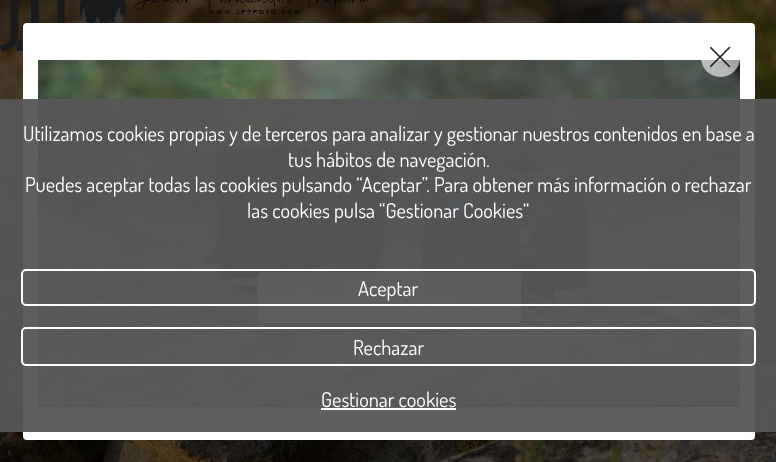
<svg xmlns="http://www.w3.org/2000/svg" width="776" height="462" viewBox="0 0 776 462">
  <rect width="100%" height="100%" fill="rgb(255,255,255)"/>
  <image x="0" y="0" width="776" height="462" href="pic1.png"/>
  <rect x="23" y="23" width="732" height="417" rx="4" fill="rgb(255,255,255)"/>
  <rect x="38" y="60" width="702" height="347" fill="rgb(0,0,0)"/>
  <image x="38" y="60" width="702" height="347" href="pic3.png"/>
  <circle cx="720.5" cy="57.5" r="19.5" fill="rgba(255,255,255,0.6)"/>
  <image x="710" y="47" width="21" height="21" href="pic2.png"/>
  <rect x="257" y="272" width="264" height="51" rx="5" fill="rgba(255,255,255,0.8)"/>
  <rect x="0" y="99" width="776" height="333" fill="rgba(86,86,86,0.95)"/>
  <g font-family="Dosis" font-size="20.4" fill="rgb(255,255,255)">
    <text x="23" y="141">Utilizamos cookies propias y de terceros para analizar y gestionar nuestros contenidos en base a</text>
    <text x="288" y="167">tus hábitos de navegación.</text>
    <text x="25" y="192">Puedes aceptar todas las cookies pulsando “Aceptar”. Para obtener más información o rechazar</text>
    <text x="247" y="218">las cookies pulsa “Gestionar Cookies“</text>
  </g>
  <rect x="22" y="270" width="733" height="35" rx="4" fill="none" stroke="rgb(255,255,255)" stroke-width="2"/>
  <text x="358" y="296" font-family="Dosis" font-size="20.4" fill="rgb(255,255,255)">Aceptar</text>
  <rect x="22" y="328" width="733" height="37" rx="4" fill="none" stroke="rgb(255,255,255)" stroke-width="2"/>
  <g font-family="Dosis" font-size="20.4" fill="rgb(255,255,255)">
    <text x="353" y="355">Rechazar</text>
    <text x="321" y="407">Gestionar cookies</text>
  </g>
  <rect x="321" y="408" width="135" height="2" fill="rgb(255,255,255)"/>
</svg>
